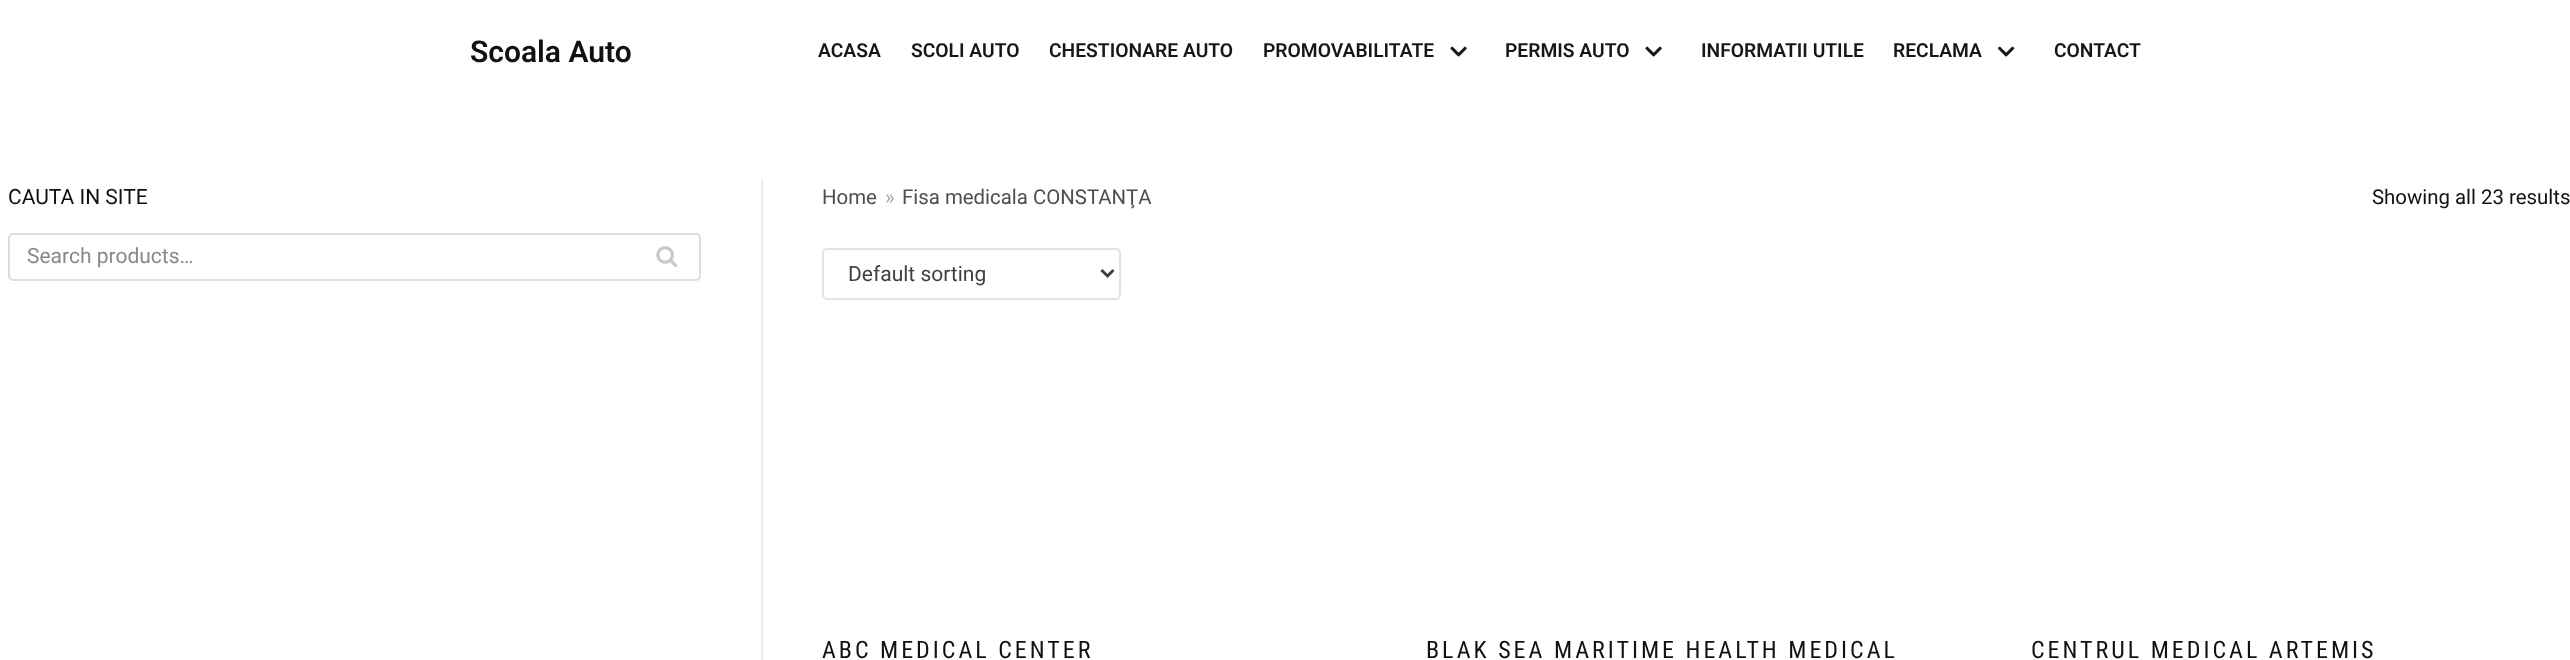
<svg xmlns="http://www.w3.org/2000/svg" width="2570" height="660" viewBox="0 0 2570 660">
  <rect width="100%" height="100%" fill="rgb(255,255,255)"/>
  <text x="470" y="62" font-family="Roboto" font-size="30" font-weight="600" fill="rgb(17,17,17)">Scoala Auto</text>
  <g font-family="Roboto" font-size="19.25" font-weight="600" fill="rgb(20,23,28)">
    <text x="818" y="57">ACASA</text>
    <text x="911" y="57">SCOLI AUTO</text>
    <text x="1049" y="57">CHESTIONARE AUTO</text>
    <text x="1263" y="57">PROMOVABILITATE</text>
  </g>
  <image x="1450" y="46" width="17" height="11" href="pic1.png"/>
  <text x="1505" y="57" font-family="Roboto" font-size="19.25" font-weight="600" fill="rgb(20,23,28)">PERMIS AUTO</text>
  <image x="1645" y="46" width="17" height="11" href="pic1.png"/>
  <g font-family="Roboto" font-size="19.25" font-weight="600" fill="rgb(20,23,28)">
    <text x="1701" y="57">INFORMATII UTILE</text>
    <text x="1893" y="57">RECLAMA</text>
  </g>
  <image x="1998" y="46" width="17" height="11" href="pic2.png"/>
  <text x="2054" y="57" font-family="Roboto" font-size="19.25" font-weight="600" fill="rgb(20,23,28)">CONTACT</text>
  <rect x="761" y="179" width="2" height="481" fill="rgb(237,237,237)"/>
  <text x="8" y="204" font-family="Roboto" font-size="21" fill="rgb(17,17,17)">CAUTA IN SITE</text>
  <rect x="9" y="234" width="691" height="46" rx="4" fill="none" stroke="rgb(221,221,221)" stroke-width="2"/>
  <text x="27" y="263" font-family="Roboto" font-size="21" fill="rgb(136,136,136)">Search products…</text>
  <image x="656" y="246" width="22" height="21" href="pic3.png"/>
  <text x="822" y="204" font-family="Roboto" font-size="20.4" fill="rgb(77,77,77)">Home</text>
  <text x="885" y="204" font-family="Roboto" font-size="20.4" fill="rgb(166,166,166)">»</text>
  <text x="902" y="204" font-family="Roboto" font-size="20.4" fill="rgb(77,77,77)">Fisa medicala CONSTANŢA</text>
  <text x="2372" y="204" font-family="Roboto" font-size="20.4" fill="rgb(17,17,17)">Showing all 23 results</text>
  <rect x="823" y="249" width="297" height="50" rx="4" fill="none" stroke="rgb(228,228,228)" stroke-width="2"/>
  <path d="M1101.5 270L1107.5 276L1113.5 270" fill="none" stroke="rgb(65,65,65)" stroke-width="3"/>
  <text x="848" y="281" font-family="Roboto" font-size="21" fill="rgb(65,65,65)">Default sorting</text>
  <g font-family="Roboto Condensed" font-size="24" letter-spacing="3" fill="rgb(17,17,17)">
    <text x="822" y="658">ABC MEDICAL CENTER</text>
    <text x="1426" y="658">BLAK SEA MARITIME HEALTH MEDICAL</text>
    <text x="2031" y="658">CENTRUL MEDICAL ARTEMIS</text>
  </g>
</svg>
